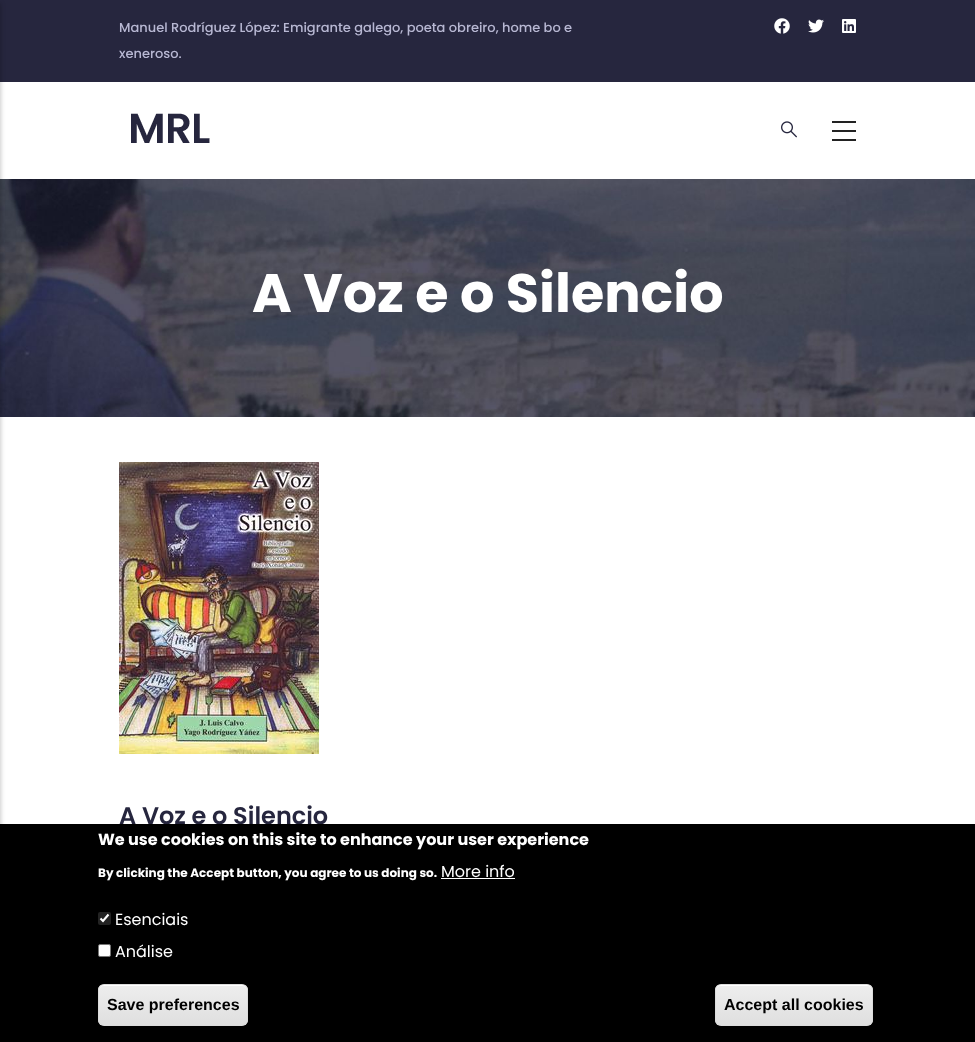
<svg xmlns="http://www.w3.org/2000/svg" width="975" height="1042" viewBox="0 0 975 1042">
  <defs>
    <clipPath id="clip1"><rect x="98" y="984" width="150" height="42" rx="6"/></clipPath>
    <linearGradient id="g1" gradientUnits="userSpaceOnUse" x1="173" y1="985" x2="173" y2="1025"><stop offset="0.05" stop-color="rgb(237,237,237)"/><stop offset="1" stop-color="rgb(223,223,223)"/></linearGradient>
    <clipPath id="clip2"><rect x="715" y="984" width="158" height="42" rx="6"/></clipPath>
    <linearGradient id="g2" gradientUnits="userSpaceOnUse" x1="794" y1="985" x2="794" y2="1025"><stop offset="0.05" stop-color="rgb(237,237,237)"/><stop offset="1" stop-color="rgb(223,223,223)"/></linearGradient>
  </defs>
  <rect width="100%" height="100%" fill="rgb(255,255,255)"/>
  <rect x="0" y="0" width="975" height="82" fill="rgb(38,38,62)"/>
  <image x="0" y="179" width="975" height="238" href="pic6.png"/>
  <rect x="-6" y="3" width="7" height="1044" fill="rgba(0,0,0,0.2)" filter="blur(2px)"/>
  <image x="781" y="121" width="16" height="17" href="pic1.png"/>
  <rect x="832" y="121" width="24" height="2" fill="rgb(34,34,34)"/>
  <rect x="832" y="130" width="24" height="2" fill="rgb(34,34,34)"/>
  <rect x="832" y="139" width="24" height="2" fill="rgb(34,34,34)"/>
  <image x="131" y="113" width="79" height="30" href="pic2.png"/>
  <g font-family="Poppins" font-size="13" font-weight="500" fill="rgb(184,184,211)">
    <text x="119" y="32">Manuel Rodríguez López: Emigrante galego, poeta obreiro, home bo e</text>
    <text x="119" y="58">xeneroso.</text>
  </g>
  <image x="774" y="18" width="16" height="16" href="pic3.png"/>
  <image x="808" y="19" width="16" height="14" href="pic4.png"/>
  <image x="842" y="19" width="14" height="14" href="pic5.png"/>
  <text x="252" y="312" font-family="Poppins" font-size="54" font-weight="bold" fill="rgb(255,255,255)">A Voz e o Silencio</text>
  <image x="119" y="462" width="200" height="292" href="pic7.png"/>
  <text x="119" y="824" font-family="Poppins" font-size="24" font-weight="600" fill="rgb(38,38,62)">A Voz e o Silencio</text>
  <rect x="0" y="824" width="975" height="218" fill="rgb(0,0,0)"/>
  <text x="98" y="845" font-family="Poppins" font-size="16" font-weight="bold" fill="rgb(255,255,255)">We use cookies on this site to enhance your user experience</text>
  <text x="98" y="877" font-family="Poppins" font-size="12" font-weight="bold" fill="rgb(255,255,255)">By clicking the Accept button, you agree to us doing so.</text>
  <text x="441" y="877" font-family="Poppins" font-size="16" fill="rgb(255,255,255)">More info</text>
  <rect x="441" y="878" width="74" height="1" fill="rgb(255,255,255)"/>
  <rect x="98" y="912" width="13" height="13" rx="2" fill="rgb(35,35,35)"/>
  <path d="M100.5 918.5L103 921L108.5 914.5" fill="none" stroke="rgb(255,255,255)" stroke-width="2.1"/>
  <text x="115" y="925" font-family="Poppins" font-size="16" fill="rgb(255,255,255)">Esenciais</text>
  <rect x="98.5" y="944.5" width="12" height="12" rx="1.5" fill="rgb(255,255,255)" stroke="rgb(118,118,118)"/>
  <text x="115" y="957" font-family="Poppins" font-size="16" fill="rgb(255,255,255)">Análise</text>
  <g clip-path="url(#clip1)">
    <rect x="98" y="985" width="150" height="40" fill="url(#g1)"/>
  </g>
  <path d="M104 986H242C245 986 247 988 247 991V990C247 987 245 985 242 985H104C101 985 99 987 99 990V991C99 988 101 986 104 986Z" fill="rgb(255,255,255)"/>
  <rect x="98.5" y="984.5" width="149" height="41" rx="5.5" fill="none" stroke="rgb(220,220,220)"/>
  <text x="107" y="1010" font-family="Liberation Sans" font-size="16" font-weight="bold" fill="rgb(0,0,0)">Save preferences</text>
  <g clip-path="url(#clip2)">
    <rect x="715" y="985" width="158" height="40" fill="url(#g2)"/>
  </g>
  <path d="M721 986H867C870 986 872 988 872 991V990C872 987 870 985 867 985H721C718 985 716 987 716 990V991C716 988 718 986 721 986Z" fill="rgb(255,255,255)"/>
  <rect x="715.5" y="984.5" width="157" height="41" rx="5.5" fill="none" stroke="rgb(220,220,220)"/>
  <text x="724" y="1010" font-family="Liberation Sans" font-size="16" font-weight="bold" fill="rgb(0,0,0)">Accept all cookies</text>
</svg>
